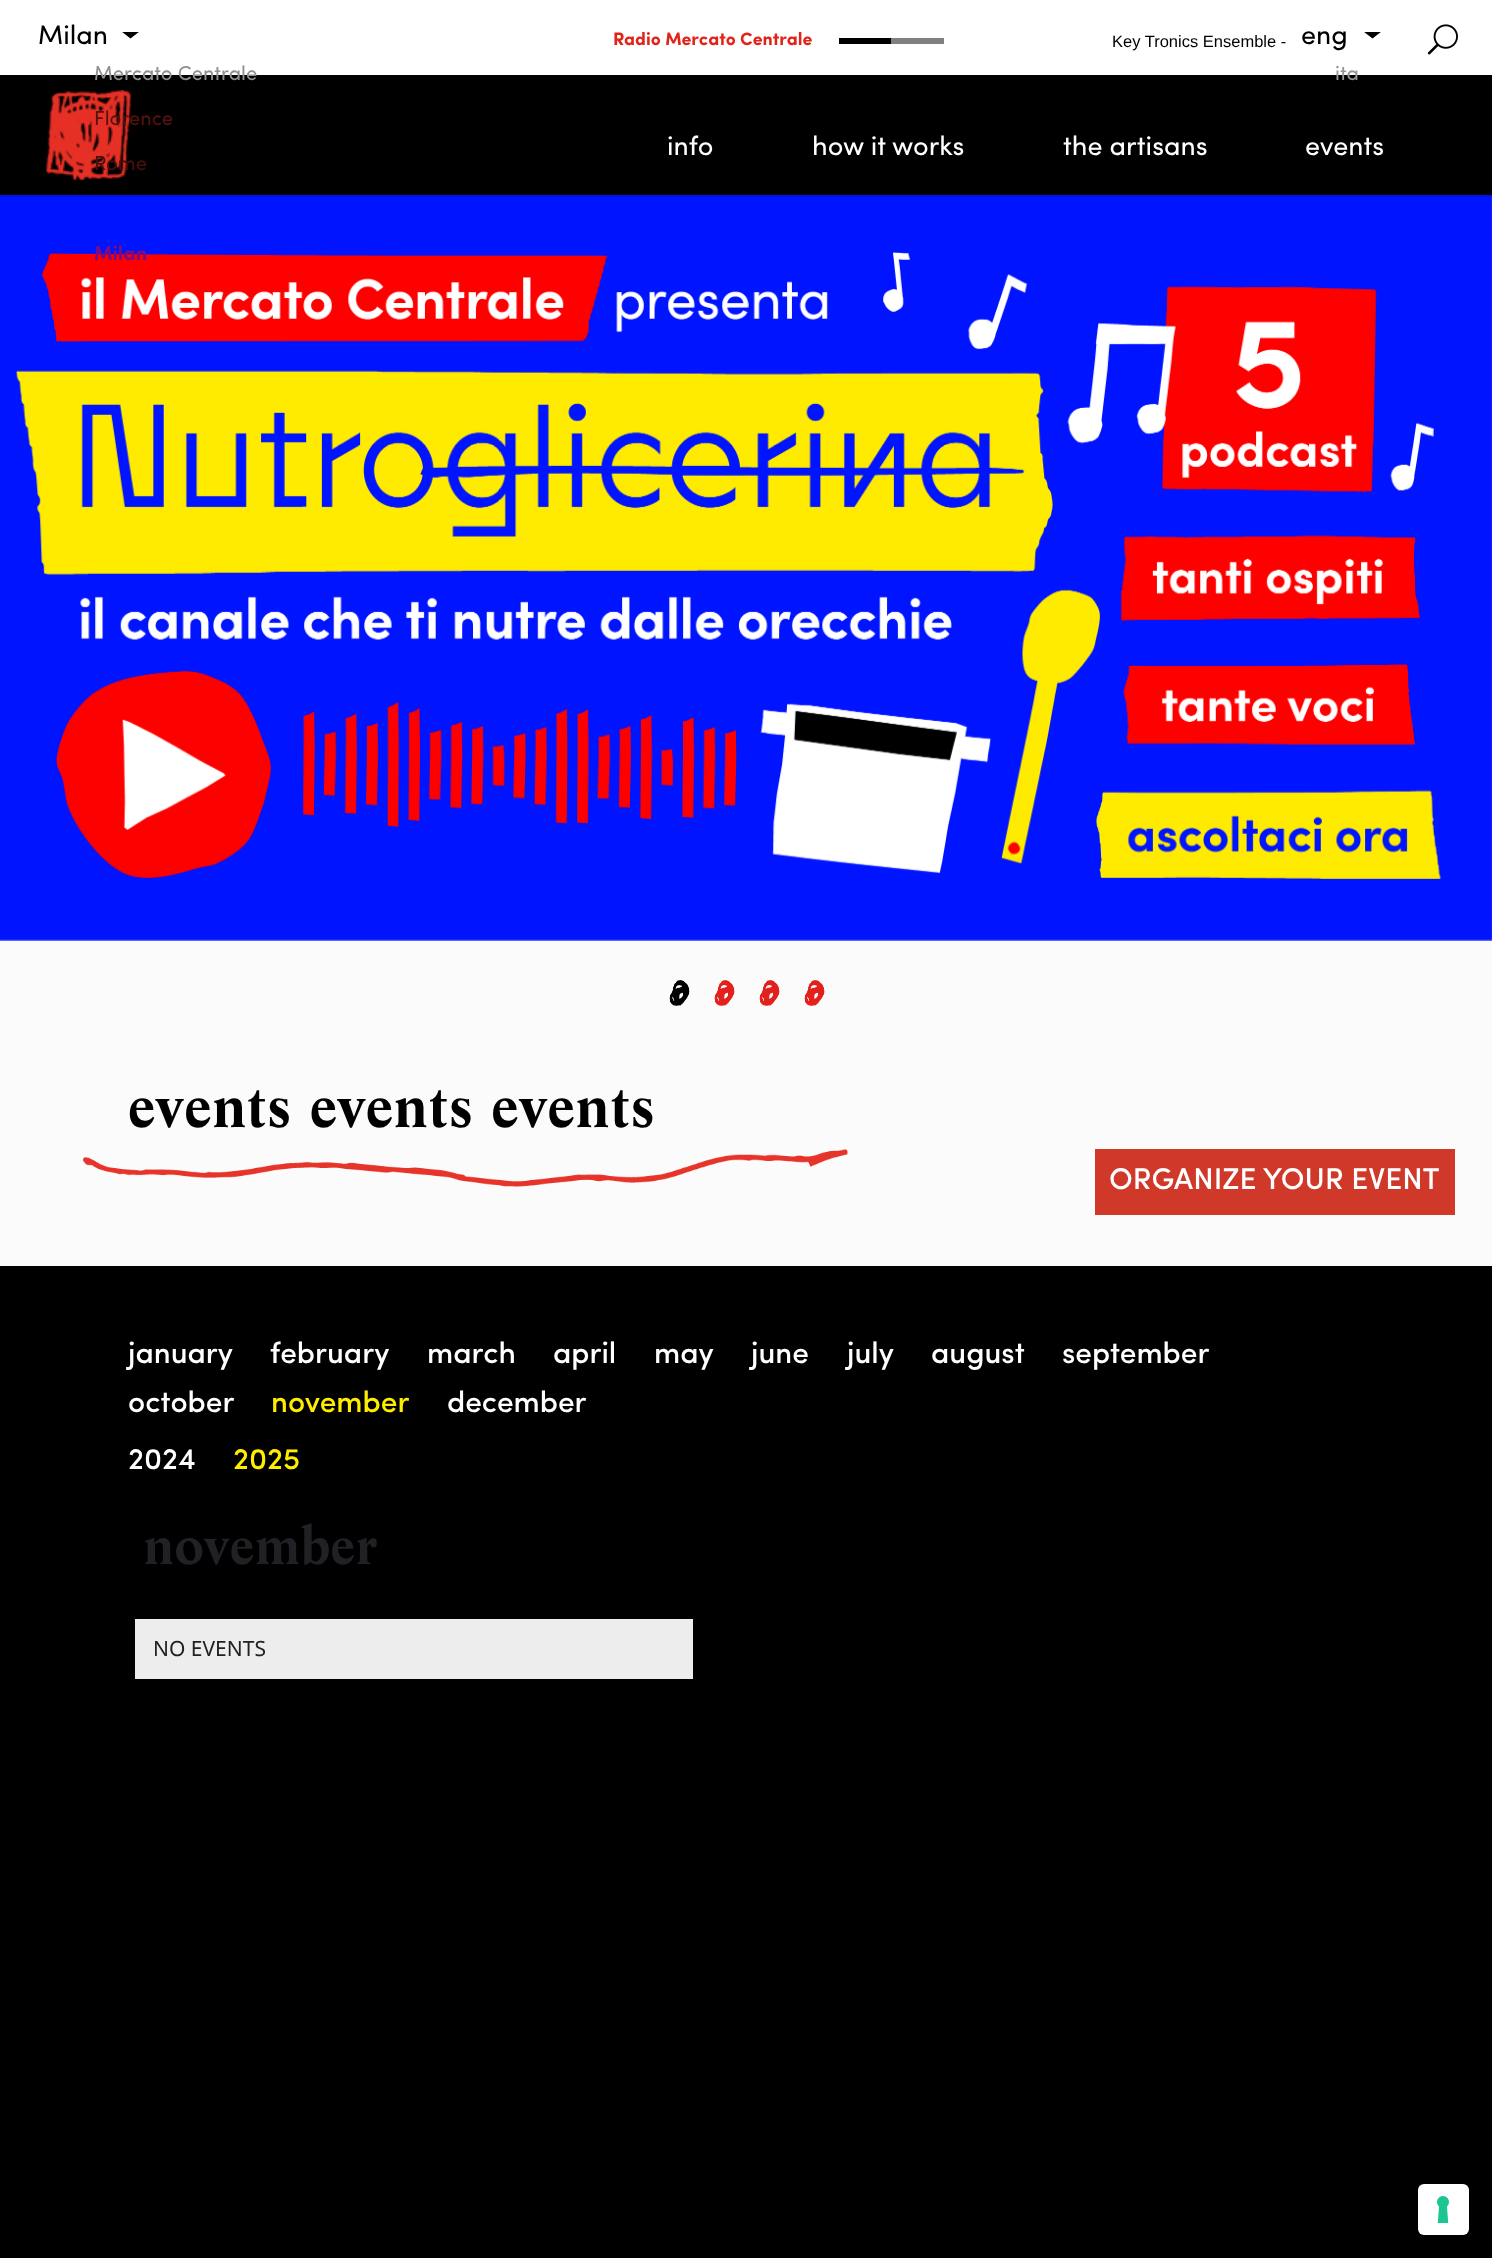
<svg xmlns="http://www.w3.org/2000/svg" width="1492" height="2258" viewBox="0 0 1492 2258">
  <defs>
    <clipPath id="clip1"><rect x="122" y="32" width="18" height="18"/></clipPath>
    <clipPath id="clip2"><rect x="1364" y="32" width="18" height="18"/></clipPath>
  </defs>
  <rect width="100%" height="100%" fill="rgb(255,255,255)"/>
  <text x="38" y="44" font-family="Sofia" font-size="27" fill="rgb(0,0,0)">Milan</text>
  <g clip-path="url(#clip1)">
    <path d="M121.5 31.5H139.5L130.5 38.5Z" fill="rgb(0,0,0)"/>
  </g>
  <rect x="0" y="75" width="1492" height="120" fill="rgb(0,0,0)"/>
  <text x="94" y="80" font-family="Sofia" font-size="20.25" fill="rgb(144,144,144)">Mercato Centrale</text>
  <image x="46" y="90" width="85" height="90" href="pic2.png"/>
  <text x="94" y="125" font-family="Sofia" font-size="20.25" fill="rgb(85,18,14)">Florence</text>
  <text x="94" y="170" font-family="Sofia" font-size="20.25" fill="rgb(73,15,12)">Rome</text>
  <rect x="0" y="939" width="1492" height="327" fill="rgb(251,251,251)"/>
  <image x="0" y="195" width="1492" height="746" href="pic3.png"/>
  <text x="94" y="260" font-family="Sofia" font-size="20.25" font-weight="bold" fill="rgb(123,10,132)">Milan</text>
  <text x="613" y="45" font-family="Sofia" font-size="18" font-weight="bold" fill="rgb(226,35,26)">Radio Mercato Centrale</text>
  <rect x="891" y="38" width="53" height="6" fill="rgb(128,128,128)"/>
  <rect x="839" y="38" width="52" height="6" fill="rgb(0,0,0)"/>
  <text x="1112" y="47" font-family="Liberation Sans" font-size="16.5" fill="rgb(0,0,0)">Key Tronics Ensemble -</text>
  <text x="1301" y="44" font-family="Sofia" font-size="27" fill="rgb(0,0,0)">eng</text>
  <g clip-path="url(#clip2)">
    <path d="M1363.5 31.5H1381.5L1372.5 38.5Z" fill="rgb(0,0,0)"/>
  </g>
  <text x="1335" y="80" font-family="Sofia" font-size="20.25" fill="rgb(151,151,151)">ita</text>
  <image x="1427" y="24" width="31" height="31" href="pic1.png"/>
  <path d="M0 195V197H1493V77H1492V195Z" fill="rgba(0,0,0,0.1)"/>
  <g font-family="Sofia" font-size="27" fill="rgb(255,255,255)">
    <text x="667" y="155">info</text>
    <text x="812" y="155">how it works</text>
    <text x="1063" y="155">the artisans</text>
    <text x="1305" y="155">events</text>
  </g>
  <image x="669" y="980" width="21" height="26" href="pic4.png"/>
  <image x="714" y="980" width="21" height="26" href="pic5.png"/>
  <image x="759" y="980" width="21" height="26" href="pic6.png"/>
  <image x="804" y="980" width="21" height="26" href="pic6.png"/>
  <text x="128" y="1127" font-family="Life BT" font-size="60" font-weight="bold" fill="rgb(0,0,0)">events events events</text>
  <image x="83" y="1149" width="765" height="38" href="pic7.png"/>
  <rect x="1095" y="1149" width="360" height="66" fill="rgb(208,57,42)"/>
  <text x="1109" y="1189" font-family="Sofia" font-size="30" font-weight="500" fill="rgb(255,255,255)">ORGANIZE YOUR EVENT</text>
  <rect x="0" y="1266" width="1492" height="992" fill="rgb(0,0,0)"/>
  <g font-family="Sofia" font-size="30" font-weight="500" fill="rgb(255,255,255)">
    <text x="128" y="1363">january</text>
    <text x="270" y="1363">february</text>
    <text x="427" y="1363">march</text>
    <text x="553" y="1363">april</text>
    <text x="654" y="1363">may</text>
    <text x="751" y="1363">june</text>
    <text x="847" y="1363">july</text>
    <text x="931" y="1363">august</text>
    <text x="1062" y="1363">september</text>
    <text x="128" y="1412">october</text>
  </g>
  <text x="271" y="1412" font-family="Sofia" font-size="30" font-weight="500" fill="rgb(255,237,0)">november</text>
  <g font-family="Sofia" font-size="30" font-weight="500" fill="rgb(255,255,255)">
    <text x="447" y="1412">december</text>
    <text x="128" y="1469">2024</text>
  </g>
  <text x="233" y="1469" font-family="Sofia" font-size="30" font-weight="500" fill="rgb(255,237,0)">2025</text>
  <text x="143" y="1564" font-family="Life BT" font-size="54" font-weight="bold" fill="rgb(32,33,36)">november</text>
  <rect x="135" y="1619" width="558" height="60" fill="rgb(237,237,237)"/>
  <text x="153" y="1656" font-family="Noto Sans" font-size="21" fill="rgb(32,33,36)">NO EVENTS</text>
  <rect x="1418" y="2184" width="51" height="51" rx="6" fill="rgb(255,255,255)"/>
  <image x="1437" y="2196" width="12" height="27" href="pic8.png"/>
</svg>
